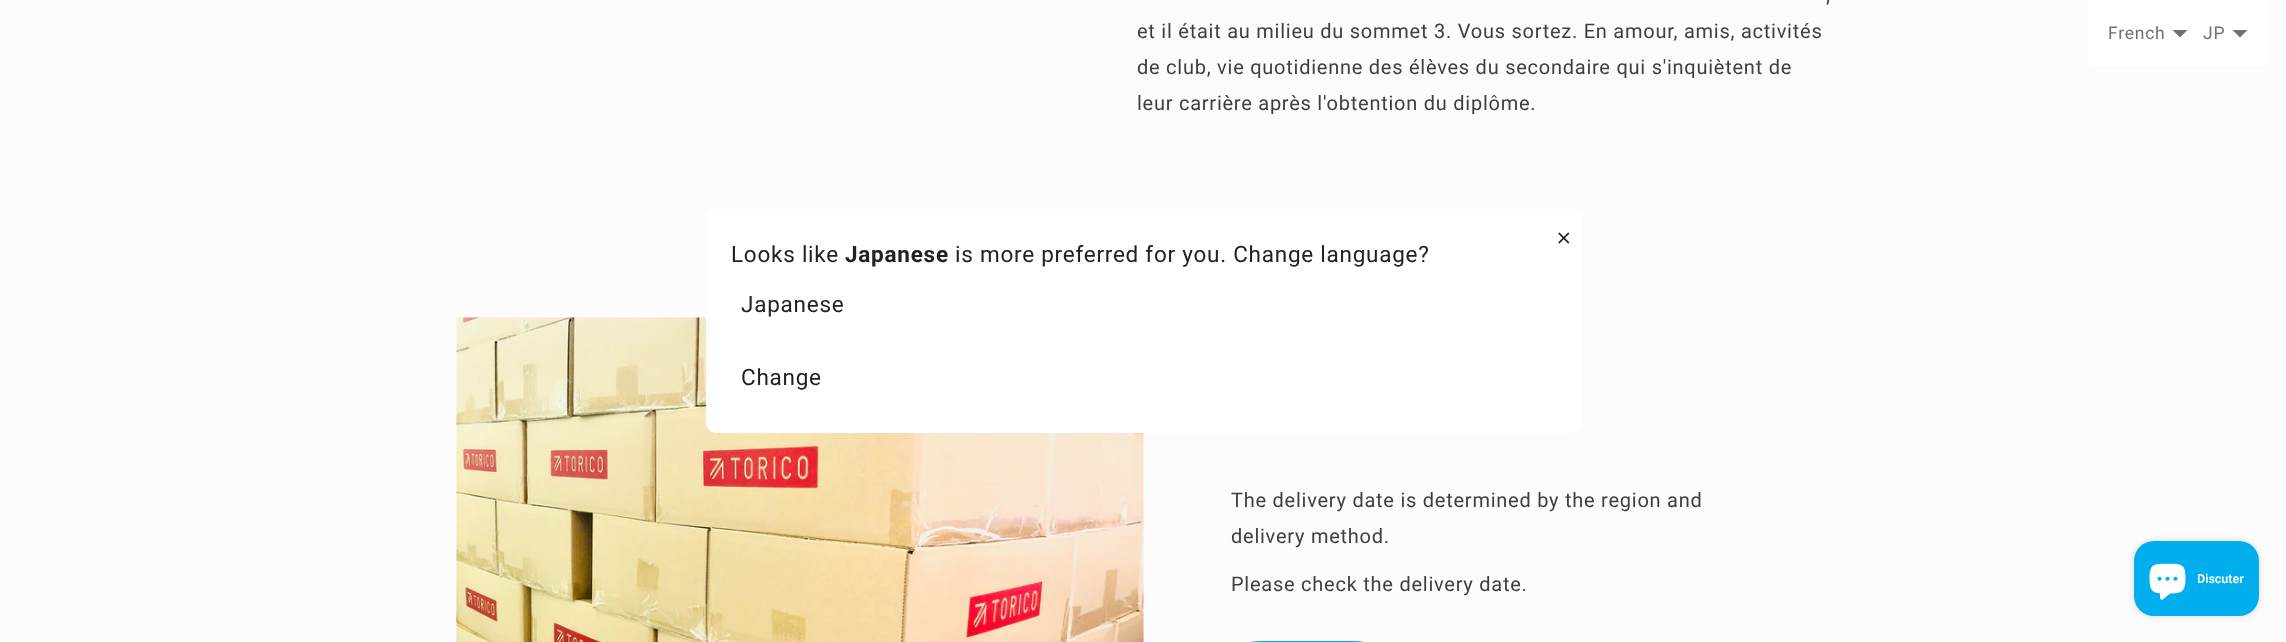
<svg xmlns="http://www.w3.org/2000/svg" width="2286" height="642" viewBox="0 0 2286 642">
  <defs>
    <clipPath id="clip1"><rect x="2198" y="560" width="46" height="38"/></clipPath>
  </defs>
  <rect width="100%" height="100%" fill="rgb(252,252,252)"/>
  <g font-family="Roboto" font-size="20" letter-spacing="0.75" fill="rgb(63,63,63)">
    <text x="1826" y="2">,</text>
    <text>
      <tspan x="1137" y="38">et il était au milieu du sommet 3. Vous sortez. En amour, amis, activités</tspan>
      <tspan x="1137" y="74">de club, vie quotidienne des élèves du secondaire qui s'inquiètent de</tspan>
      <tspan x="1137" y="110">leur carrière après l'obtention du diplôme.</tspan>
    </text>
  </g>
  <image x="456" y="317" width="688" height="325" href="pic1.png"/>
  <g font-family="Roboto" font-size="20" letter-spacing="0.75" fill="rgb(63,63,63)">
    <text>
      <tspan x="1231" y="507">The delivery date is determined by the region and</tspan>
      <tspan x="1231" y="543">delivery method.</tspan>
    </text>
    <text x="1231" y="591">Please check the delivery date.</text>
  </g>
  <rect x="1231.5" y="641.5" width="152" height="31" rx="29" fill="none" stroke="rgb(0,174,239)"/>
  <rect x="2088" y="0" width="180" height="66" rx="5" fill="rgb(255,255,255)"/>
  <text x="2108" y="39" font-family="Roboto" font-size="17.5" letter-spacing="0.75" fill="rgb(113,113,113)">French</text>
  <path d="M2172.5 30H2187.5L2180 37.5Z" fill="rgb(113,113,113)"/>
  <text x="2203" y="39" font-family="Roboto" font-size="17.5" letter-spacing="0.75" fill="rgb(113,113,113)">JP</text>
  <path d="M2232.5 30H2247.5L2240 37.5Z" fill="rgb(113,113,113)"/>
  <rect x="706" y="209" width="875" height="224" rx="10" fill="rgb(255,255,255)"/>
  <image x="1558" y="232" width="12" height="12" href="pic2.png"/>
  <text x="731" y="262" font-family="Roboto" font-size="22.5" letter-spacing="0.75" fill="rgb(32,34,35)">Looks like</text>
  <text x="845" y="262" font-family="Roboto" font-size="22.5" font-weight="bold" letter-spacing="0.75" fill="rgb(32,34,35)">Japanese</text>
  <g font-family="Roboto" font-size="22.5" letter-spacing="0.75" fill="rgb(32,34,35)">
    <text x="955" y="262">is more preferred for you. Change language?</text>
    <text x="741" y="312">Japanese</text>
    <text x="741" y="385">Change</text>
  </g>
  <rect x="2134" y="541" width="125" height="75" rx="20" fill="rgba(0,0,0,0.15)" filter="blur(3px)"/>
  <rect x="2134" y="541" width="125" height="75" rx="20" fill="rgb(1,174,238)"/>
  <image x="2149" y="563" width="37" height="37" href="pic3.png"/>
  <g clip-path="url(#clip1)">
    <text x="2197" y="583" font-family="Roboto" font-size="12.5" font-weight="600" fill="rgb(255,255,255)">Discuter</text>
  </g>
</svg>
